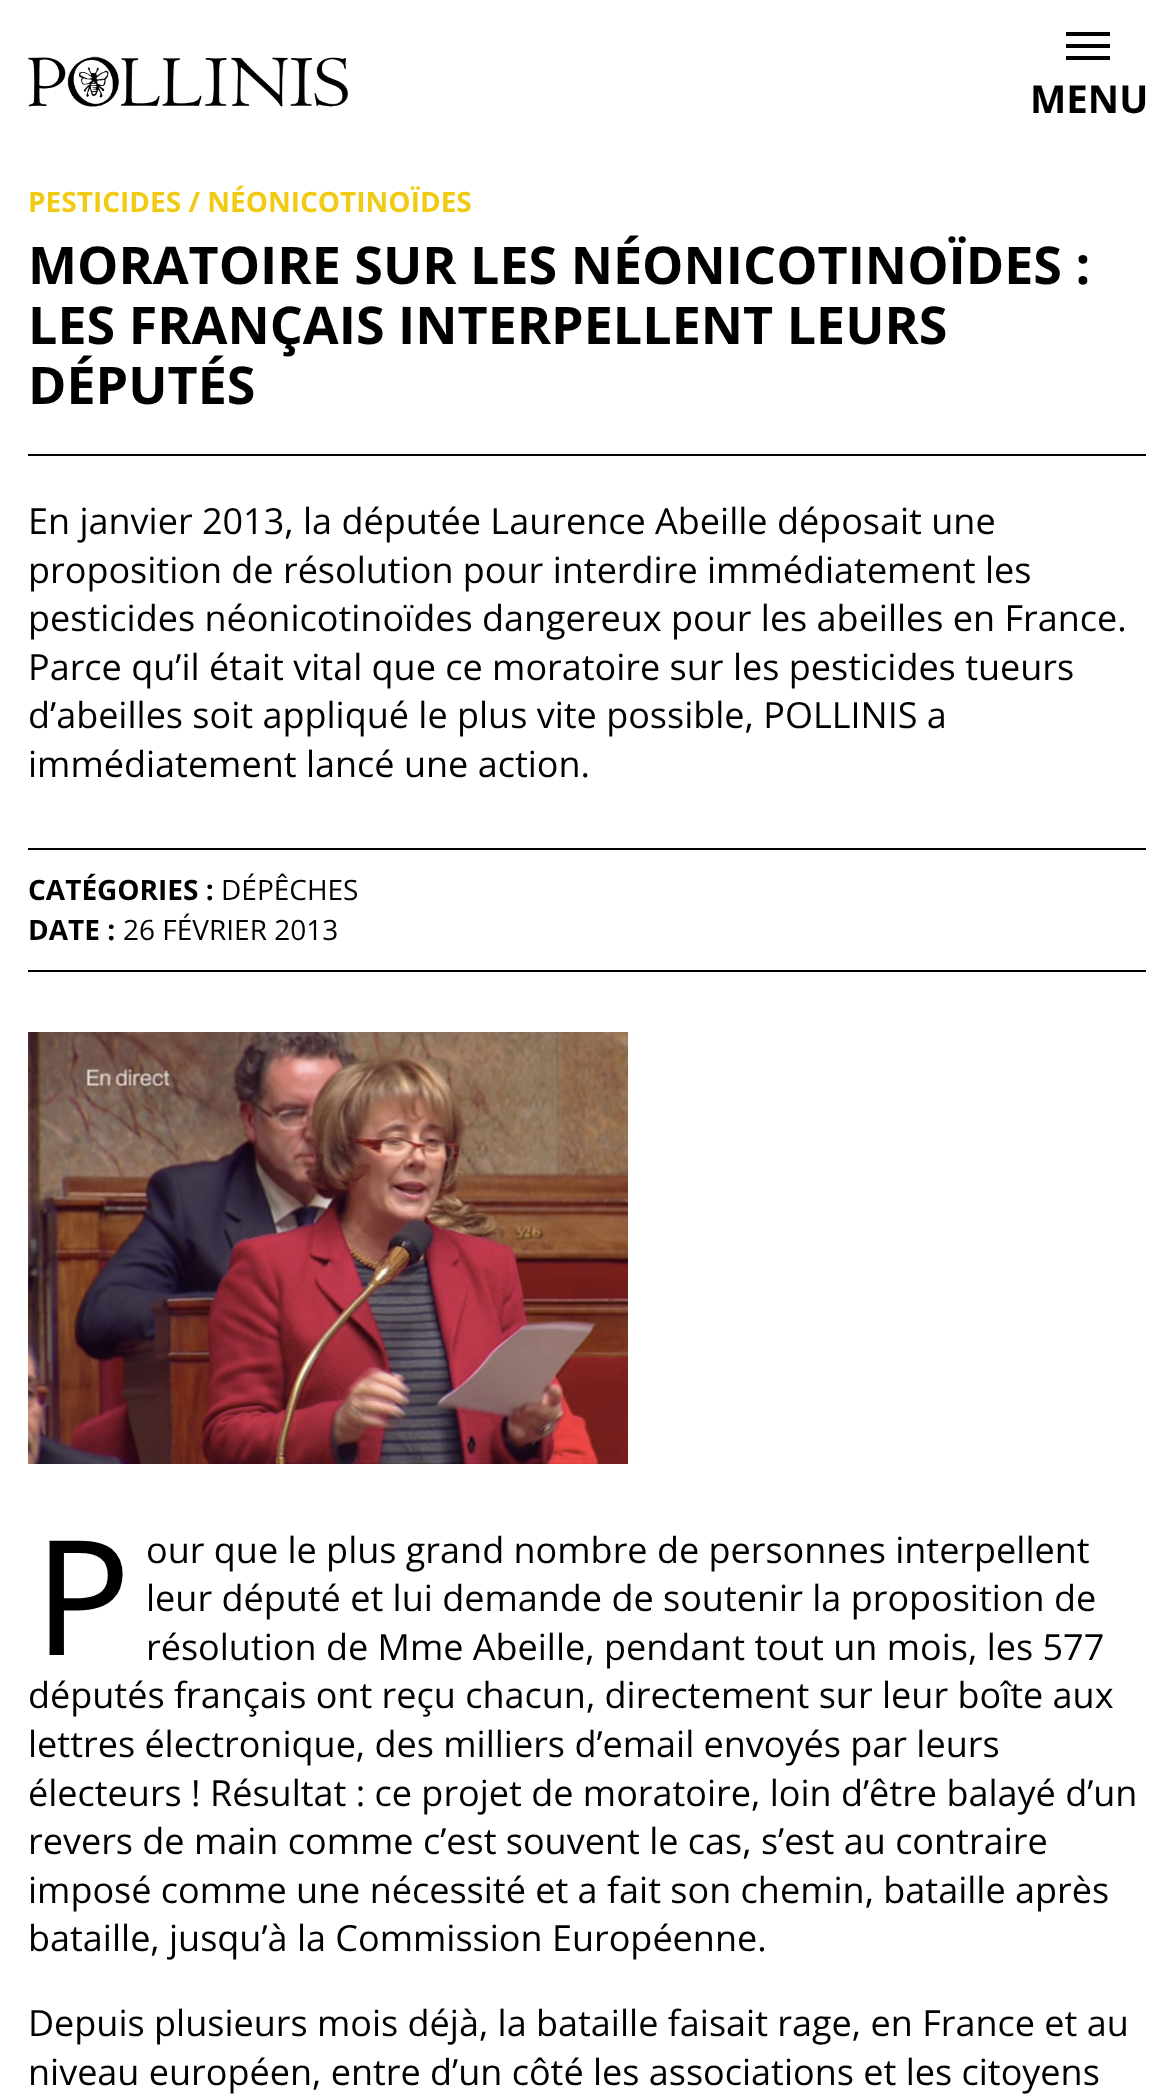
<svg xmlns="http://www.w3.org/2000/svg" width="1173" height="2095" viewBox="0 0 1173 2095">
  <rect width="100%" height="100%" fill="rgb(255,255,255)"/>
  <image x="28" y="56" width="320" height="51" href="pic1.png"/>
  <rect x="1066" y="44" width="44" height="4" fill="rgb(0,0,0)"/>
  <rect x="1066" y="32" width="44" height="4" fill="rgb(0,0,0)"/>
  <rect x="1066" y="56" width="44" height="4" fill="rgb(0,0,0)"/>
  <text x="1030" y="113" font-family="Open Sans" font-size="38.5" font-weight="bold" fill="rgb(0,0,0)">MENU</text>
  <text x="28" y="212" font-family="Open Sans" font-size="28" font-weight="bold" fill="rgb(241,203,19)">PESTICIDES / NÉONICOTINOÏDES</text>
  <g font-family="Open Sans" font-size="52" font-weight="bold" fill="rgb(0,0,0)">
    <text>
      <tspan x="28" y="284">MORATOIRE SUR LES NÉONICOTINOÏDES :</tspan>
      <tspan x="28" y="344">LES FRANÇAIS INTERPELLENT LEURS</tspan>
      <tspan x="28" y="404">DÉPUTÉS</tspan>
    </text>
  </g>
  <rect x="28" y="454" width="1118" height="2" fill="rgb(0,0,0)"/>
  <g font-family="Open Sans" font-size="36" fill="rgb(0,0,0)">
    <text>
      <tspan x="28" y="534">En janvier 2013, la députée Laurence Abeille déposait une</tspan>
      <tspan x="28" y="583">proposition de résolution pour interdire immédiatement les</tspan>
      <tspan x="28" y="631">pesticides néonicotinoïdes dangereux pour les abeilles en France.</tspan>
      <tspan x="28" y="680">Parce qu’il était vital que ce moratoire sur les pesticides tueurs</tspan>
      <tspan x="28" y="728">d’abeilles soit appliqué le plus vite possible, POLLINIS a</tspan>
      <tspan x="28" y="777">immédiatement lancé une action.</tspan>
    </text>
  </g>
  <rect x="28" y="848" width="1118" height="2" fill="rgb(0,0,0)"/>
  <rect x="28" y="970" width="1118" height="2" fill="rgb(0,0,0)"/>
  <text x="28" y="900" font-family="Open Sans" font-size="28" font-weight="bold" fill="rgb(0,0,0)">CATÉGORIES :</text>
  <text x="221" y="900" font-family="Open Sans" font-size="28" fill="rgb(0,0,0)">DÉPÊCHES</text>
  <text x="28" y="940" font-family="Open Sans" font-size="28" font-weight="bold" fill="rgb(0,0,0)">DATE :</text>
  <text x="123" y="940" font-family="Open Sans" font-size="28" fill="rgb(0,0,0)">26 FÉVRIER 2013</text>
  <image x="28" y="1032" width="600" height="432" href="pic2.png"/>
  <text x="34" y="1655" font-family="Noto Sans" font-size="160" fill="rgb(0,0,0)">P</text>
  <g font-family="Open Sans" font-size="36" fill="rgb(0,0,0)">
    <text>
      <tspan x="146" y="1563">our que le plus grand nombre de personnes interpellent</tspan>
      <tspan x="146" y="1611">leur député et lui demande de soutenir la proposition de</tspan>
      <tspan x="146" y="1660">résolution de Mme Abeille, pendant tout un mois, les 577</tspan>
    </text>
    <text>
      <tspan x="28" y="1708">députés français ont reçu chacun, directement sur leur boîte aux</tspan>
      <tspan x="28" y="1757">lettres électronique, des milliers d’email envoyés par leurs</tspan>
      <tspan x="28" y="1806">électeurs ! Résultat : ce projet de moratoire, loin d’être balayé d’un</tspan>
      <tspan x="28" y="1854">revers de main comme c’est souvent le cas, s’est au contraire</tspan>
      <tspan x="28" y="1903">imposé comme une nécessité et a fait son chemin, bataille après</tspan>
      <tspan x="28" y="1951">bataille, jusqu’à la Commission Européenne.</tspan>
    </text>
    <text>
      <tspan x="28" y="2036">Depuis plusieurs mois déjà, la bataille faisait rage, en France et au</tspan>
      <tspan x="28" y="2085">niveau européen, entre d’un côté les associations et les citoyens</tspan>
    </text>
  </g>
</svg>
